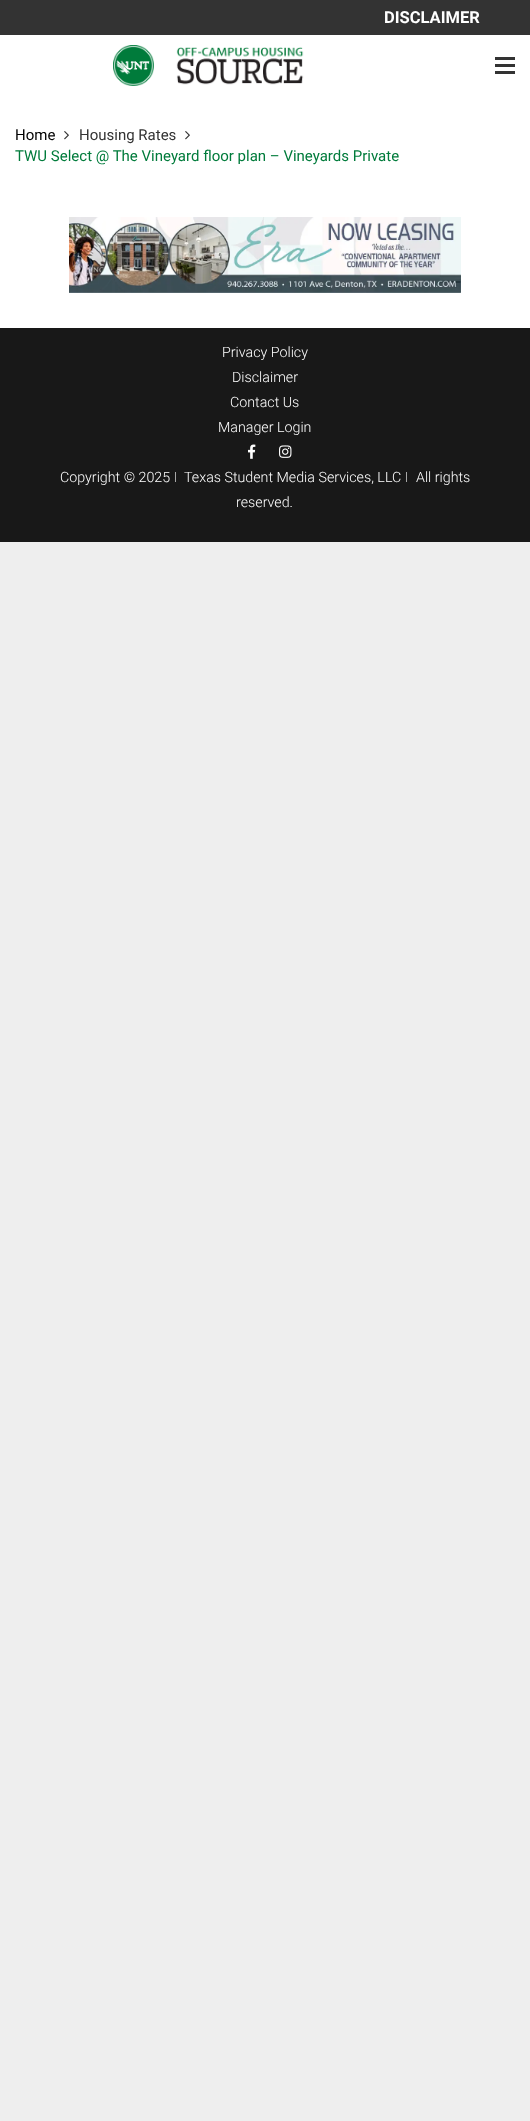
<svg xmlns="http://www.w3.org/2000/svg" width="530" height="2121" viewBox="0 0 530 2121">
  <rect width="100%" height="100%" fill="rgb(238,238,238)"/>
  <rect x="0" y="35" width="530" height="293" fill="rgb(255,255,255)"/>
  <rect x="0" y="0" width="530" height="35" fill="rgb(51,51,51)"/>
  <text x="384" y="23" font-family="Roboto" font-size="16.5" font-weight="bold" fill="rgb(255,255,255)">DISCLAIMER</text>
  <image x="113" y="45" width="41" height="41" href="pic1.png"/>
  <image x="176" y="47" width="128" height="38" href="pic2.png"/>
  <rect x="495" y="64" width="20" height="3" fill="rgb(51,51,51)"/>
  <rect x="495" y="57" width="20" height="3" fill="rgb(51,51,51)"/>
  <rect x="495" y="71" width="20" height="3" fill="rgb(51,51,51)"/>
  <text x="15" y="140" font-family="Roboto" font-size="15" fill="rgb(0,0,0)">Home</text>
  <image x="64" y="131" width="5" height="9" href="pic3.png"/>
  <text x="79" y="140" font-family="Roboto" font-size="15" fill="rgb(51,51,51)">Housing Rates</text>
  <image x="185" y="131" width="5" height="9" href="pic3.png"/>
  <text x="15" y="161" font-family="Roboto" font-size="15" fill="rgb(0,123,59)">TWU Select @ The Vineyard floor plan – Vineyards Private</text>
  <image x="69" y="217" width="392" height="76" href="pic4.png"/>
  <rect x="0" y="328" width="530" height="214" fill="rgb(24,24,24)"/>
  <g font-family="Roboto" font-size="14.25" font-weight="300" fill="rgb(255,255,255)">
    <text x="222" y="357">Privacy Policy</text>
    <text x="232" y="382">Disclaimer</text>
    <text x="230" y="407">Contact Us</text>
    <text x="218" y="432">Manager Login</text>
  </g>
  <image x="248" y="444" width="8" height="15" href="pic5.png"/>
  <image x="279" y="445" width="13" height="13" href="pic6.png"/>
  <text x="60" y="482" font-family="Roboto" font-size="14.25" font-weight="300" fill="rgb(255,255,255)">Copyright © 2025</text>
  <rect x="175" y="472" width="1" height="10" fill="rgb(167,167,167)"/>
  <text x="184" y="482" font-family="Roboto" font-size="14.25" font-weight="300" fill="rgb(255,255,255)">Texas Student Media Services, LLC</text>
  <rect x="406" y="472" width="1" height="10" fill="rgb(167,167,167)"/>
  <g font-family="Roboto" font-size="14.25" font-weight="300" fill="rgb(255,255,255)">
    <text x="416" y="482">All rights</text>
    <text x="236" y="507">reserved.</text>
  </g>
</svg>
